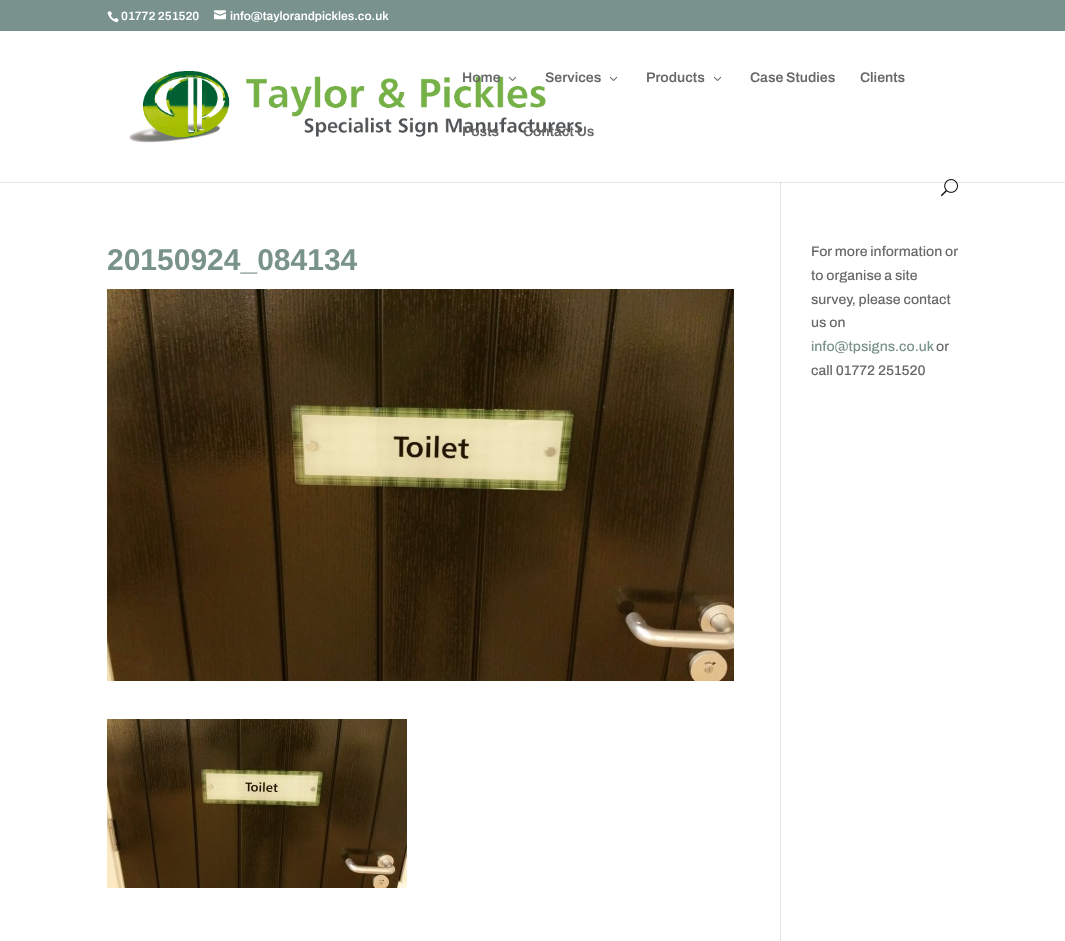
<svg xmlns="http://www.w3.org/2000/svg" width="1065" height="941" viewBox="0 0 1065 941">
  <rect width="100%" height="100%" fill="rgb(121,146,140)"/>
  <image x="107" y="11" width="12" height="12" href="pic1.png"/>
  <text x="121" y="20" font-family="Archivo" font-size="12" font-weight="600" fill="rgb(255,255,255)">01772 251520</text>
  <image x="214" y="10" width="12" height="10" href="pic2.png"/>
  <text x="230" y="20" font-family="Archivo" font-size="12" font-weight="600" fill="rgb(255,255,255)">info@taylorandpickles.co.uk</text>
  <rect x="0" y="31" width="1065" height="151" fill="rgb(255,255,255)"/>
  <image x="129" y="70" width="454" height="73" href="pic3.png"/>
  <text x="462" y="82" font-family="Archivo" font-size="14" font-weight="600" fill="rgb(104,104,104)">Home</text>
  <image x="508" y="76" width="9" height="5" href="pic4.png"/>
  <text x="545" y="82" font-family="Archivo" font-size="14" font-weight="600" fill="rgb(104,104,104)">Services</text>
  <image x="609" y="76" width="9" height="5" href="pic4.png"/>
  <text x="646" y="82" font-family="Archivo" font-size="14" font-weight="600" fill="rgb(104,104,104)">Products</text>
  <image x="713" y="76" width="9" height="5" href="pic4.png"/>
  <g font-family="Archivo" font-size="14" font-weight="600" fill="rgb(104,104,104)">
    <text x="750" y="82">Case Studies</text>
    <text x="860" y="82">Clients</text>
    <text x="462" y="136">Posts</text>
    <text x="523" y="136">Contact Us</text>
  </g>
  <rect x="0" y="183" width="1065" height="758" fill="rgb(255,255,255)"/>
  <rect x="0" y="182" width="1065" height="1" fill="rgb(230,230,230)"/>
  <image x="941" y="179" width="17" height="18" href="pic5.png"/>
  <rect x="780" y="182" width="1" height="759" fill="rgb(226,226,226)"/>
  <rect x="780" y="182" width="1" height="1" fill="rgb(203,203,203)"/>
  <text x="107" y="270" font-family="Liberation Sans" font-size="30" font-weight="bold" fill="rgb(121,146,140)">20150924_084134</text>
  <image x="107" y="289" width="627" height="392" href="pic6.png"/>
  <image x="107" y="719" width="300" height="169" href="pic7.png"/>
  <g font-family="Archivo" font-size="14" font-weight="500" fill="rgb(104,104,104)">
    <text>
      <tspan x="811" y="256">For more information or</tspan>
      <tspan x="811" y="280">to organise a site</tspan>
      <tspan x="811" y="304">survey, please contact</tspan>
      <tspan x="811" y="327">us on</tspan>
    </text>
  </g>
  <text x="811" y="351" font-family="Archivo" font-size="14" font-weight="500" fill="rgb(121,146,140)">info@tpsigns.co.uk</text>
  <g font-family="Archivo" font-size="14" font-weight="500" fill="rgb(104,104,104)">
    <text x="936" y="351">or</text>
    <text x="811" y="375">call 01772 251520</text>
  </g>
</svg>
